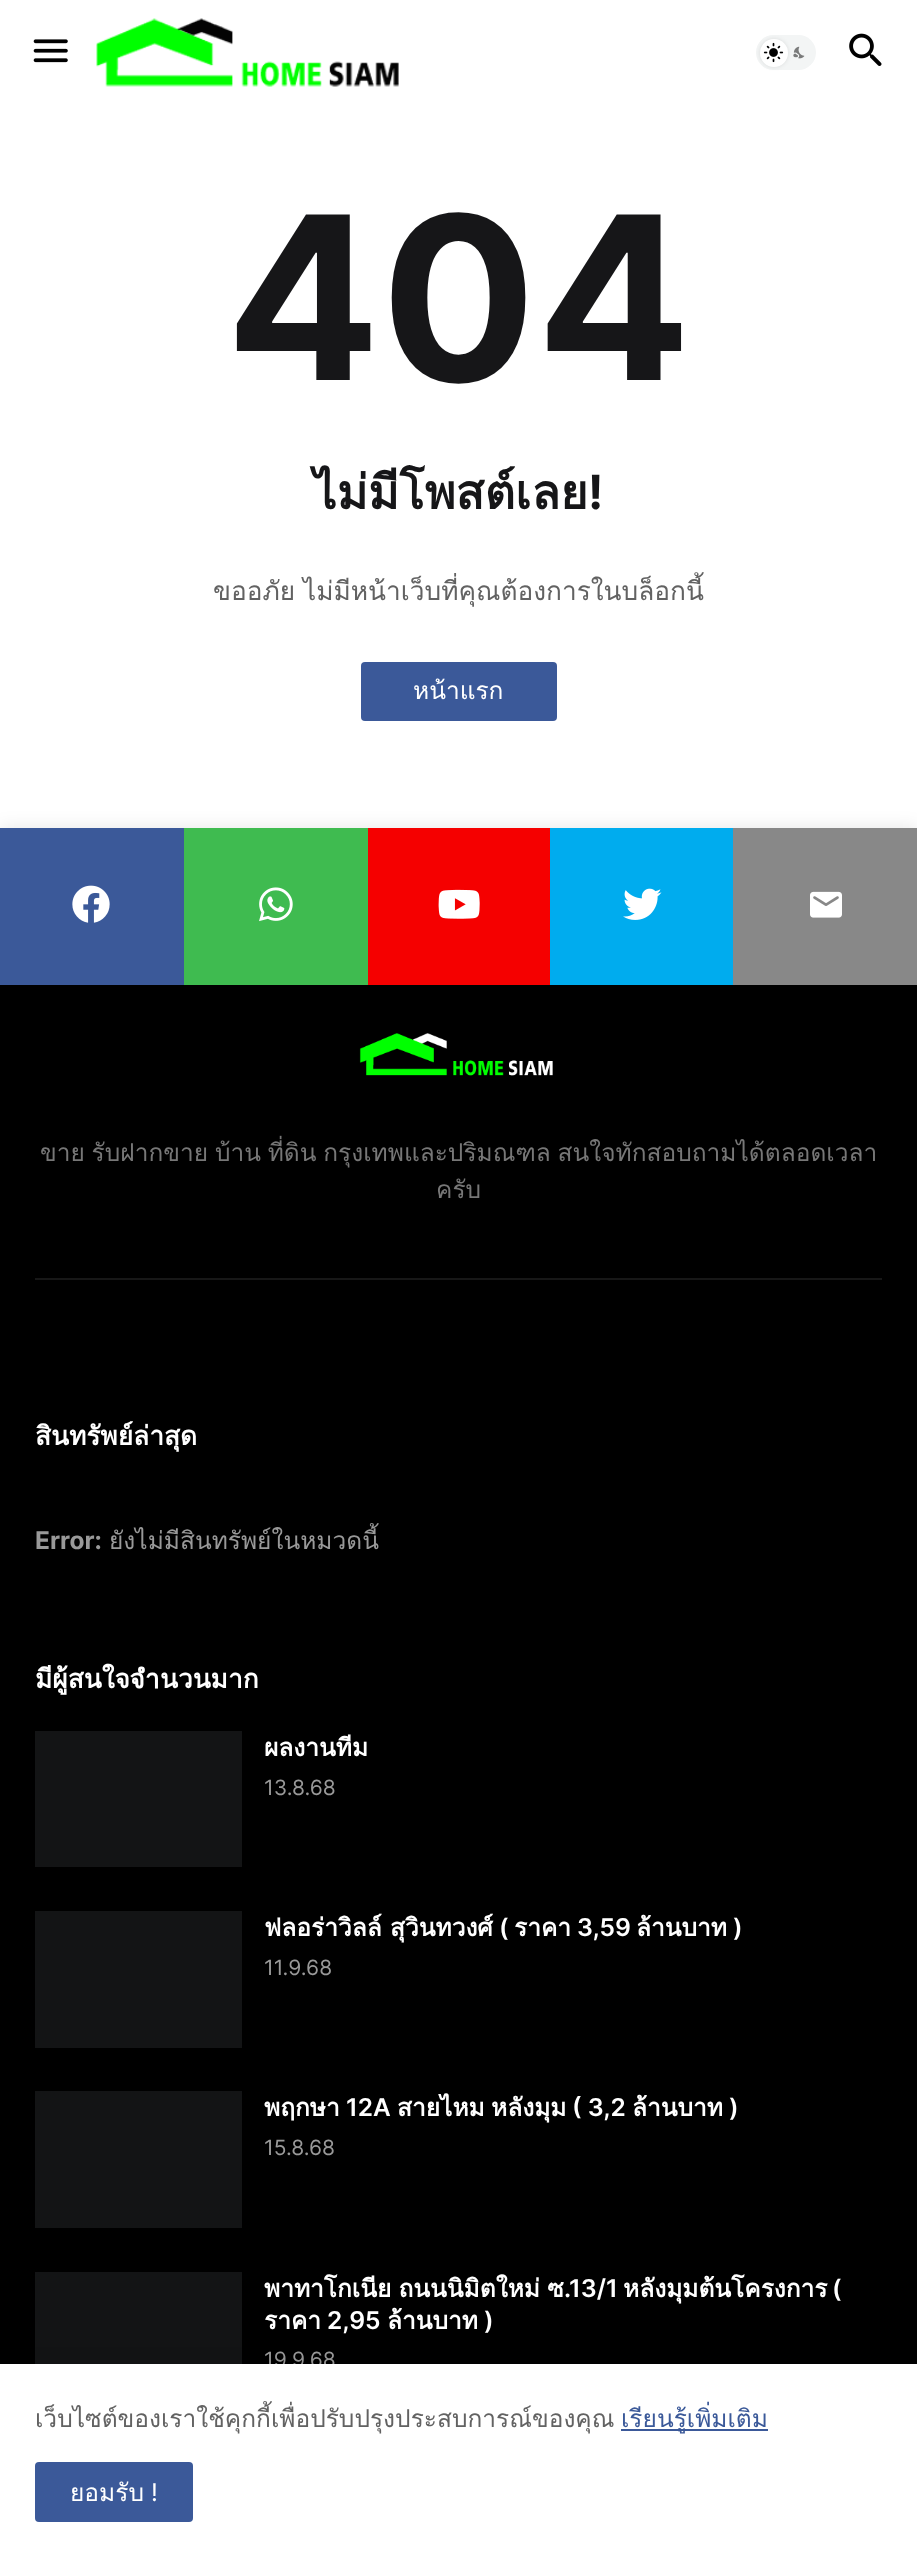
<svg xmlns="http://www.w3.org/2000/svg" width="917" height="2556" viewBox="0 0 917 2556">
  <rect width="100%" height="100%" fill="rgb(255,255,255)"/>
  <image x="33" y="39" width="35" height="24" href="pic1.png"/>
  <image x="96" y="18" width="303" height="69" href="pic2.png"/>
  <rect x="756" y="35" width="60" height="35" rx="17.5" fill="rgb(243,245,245)"/>
  <image x="793" y="46" width="12" height="13" href="pic4.png"/>
  <rect x="760" y="39" width="28" height="28" rx="14" fill="rgba(0,0,0,0.1)" filter="blur(2px)"/>
  <circle cx="774" cy="53" r="14" fill="rgb(255,255,255)"/>
  <image x="763" y="42" width="21" height="21" href="pic3.png"/>
  <image x="849" y="33" width="33" height="33" href="pic5.png"/>
  <text x="226" y="380" font-family="Inter" font-size="227.5" font-weight="bold" fill="rgb(22,22,24)">404</text>
  <text x="313" y="509" font-family="Loma" font-size="47.25" font-weight="bold" fill="rgb(22,22,24)">ไม่มีโพสต์เลย</text>
  <text x="588" y="509" font-family="Inter" font-size="47.25" font-weight="bold" fill="rgb(22,22,24)">!</text>
  <text x="213" y="600" word-spacing="-1" font-family="Loma" font-size="26.25" fill="rgb(98,98,98)">ขออภัย ไม่มีหน้าเว็บที่คุณต้องการในบล็อกนี้</text>
  <rect x="361" y="662" width="196" height="59" rx="4" fill="rgb(59,89,153)"/>
  <text x="413" y="699" font-family="Loma" font-size="24.5" fill="rgb(255,255,255)">หน้าแรก</text>
  <rect x="0" y="828" width="917" height="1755" fill="rgba(0,0,0,0.1)" filter="blur(9px)"/>
  <rect x="0" y="985" width="917" height="1379" fill="rgb(0,0,0)"/>
  <rect x="0" y="828" width="184" height="157" fill="rgb(59,89,153)"/>
  <image x="72" y="885" width="38" height="38" href="pic6.png"/>
  <rect x="184" y="828" width="184" height="157" fill="rgb(63,187,80)"/>
  <image x="259" y="887" width="34" height="35" href="pic7.png"/>
  <rect x="368" y="828" width="182" height="157" fill="rgb(245,0,0)"/>
  <image x="438" y="889" width="42" height="30" href="pic8.png"/>
  <rect x="550" y="828" width="183" height="157" fill="rgb(0,172,238)"/>
  <image x="623" y="888" width="39" height="32" href="pic9.png"/>
  <rect x="733" y="828" width="184" height="157" fill="rgb(136,136,136)"/>
  <image x="810" y="891" width="32" height="27" href="pic10.png"/>
  <image x="359" y="1033" width="194" height="43" href="pic11.png"/>
  <g font-family="Loma" font-size="24.5" fill="rgb(119,119,119)">
    <text x="40" y="1161" word-spacing="-1.5">ขาย รับฝากขาย บ้าน ที่ดิน กรุงเทพและปริมณฑล สนใจทักสอบถามได้ตลอดเวลา</text>
    <text x="436" y="1198">ครับ</text>
  </g>
  <rect x="35" y="1278" width="847" height="2" fill="rgb(23,23,23)"/>
  <text x="35" y="1445" font-family="Loma" font-size="26.25" font-weight="bold" fill="rgb(255,255,255)">สินทรัพย์ล่าสุด</text>
  <text x="35" y="1549" font-family="Inter" font-size="24.5" font-weight="bold" fill="rgb(153,153,153)">Error:</text>
  <text x="109" y="1549" font-family="Loma" font-size="24.5" fill="rgb(153,153,153)">ยังไม่มีสินทรัพย์ในหมวดนี้</text>
  <text x="35" y="1688" font-family="Loma" font-size="26.25" font-weight="bold" fill="rgb(255,255,255)">มีผู้สนใจจำนวนมาก</text>
  <rect x="35" y="1731" width="207" height="136" fill="rgb(19,20,21)"/>
  <text x="264" y="1756" font-family="Loma" font-size="24.5" font-weight="bold" fill="rgb(255,255,255)">ผลงานทีม</text>
  <text x="264" y="1795" font-family="Inter" font-size="21" fill="rgb(153,153,153)">13.8.68</text>
  <rect x="35" y="1911" width="207" height="137" fill="rgb(19,20,21)"/>
  <text x="264" y="1936" font-family="Loma" font-size="24.5" font-weight="bold" fill="rgb(255,255,255)">ฟลอร่าวิลล์ สุวินทวงศ์</text>
  <text x="499" y="1936" font-family="Inter" font-size="24.5" font-weight="600" fill="rgb(255,255,255)">(</text>
  <text x="514" y="1936" font-family="Loma" font-size="24.5" font-weight="bold" fill="rgb(255,255,255)">ราคา</text>
  <text x="577" y="1936" font-family="Inter" font-size="24.5" font-weight="600" fill="rgb(255,255,255)">3,59</text>
  <text x="636" y="1936" font-family="Loma" font-size="24.5" font-weight="bold" fill="rgb(255,255,255)">ล้านบาท</text>
  <text x="733" y="1936" font-family="Inter" font-size="24.5" font-weight="600" fill="rgb(255,255,255)">)</text>
  <text x="264" y="1975" font-family="Inter" font-size="21" fill="rgb(153,153,153)">11.9.68</text>
  <rect x="35" y="2091" width="207" height="137" fill="rgb(19,20,21)"/>
  <text x="264" y="2116" font-family="Loma" font-size="24.5" font-weight="bold" fill="rgb(255,255,255)">พฤกษา</text>
  <text x="346" y="2116" font-family="Inter" font-size="24.5" font-weight="600" fill="rgb(255,255,255)">12A</text>
  <g font-family="Loma" font-size="24.5" font-weight="bold" fill="rgb(255,255,255)">
    <text x="397" y="2116">สายไหม</text>
    <text x="491" y="2116">หลังมุม</text>
  </g>
  <text x="572" y="2116" font-family="Inter" font-size="24.5" font-weight="600" fill="rgb(255,255,255)">( 3,2</text>
  <text x="632" y="2116" font-family="Loma" font-size="24.5" font-weight="bold" fill="rgb(255,255,255)">ล้านบาท</text>
  <text x="729" y="2116" font-family="Inter" font-size="24.5" font-weight="600" fill="rgb(255,255,255)">)</text>
  <text x="264" y="2155" font-family="Inter" font-size="21" fill="rgb(153,153,153)">15.8.68</text>
  <rect x="35" y="2272" width="207" height="92" fill="rgb(19,20,21)"/>
  <text x="264" y="2297" word-spacing="-1" font-family="Loma" font-size="24.5" font-weight="bold" fill="rgb(255,255,255)">พาทาโกเนีย ถนนนิมิตใหม่ ซ</text>
  <text x="564" y="2297" font-family="Inter" font-size="24.5" font-weight="600" fill="rgb(255,255,255)">.13/1</text>
  <text x="623" y="2297" font-family="Loma" font-size="24.5" font-weight="bold" fill="rgb(255,255,255)">หลังมุมต้นโครงการ</text>
  <text x="832" y="2297" font-family="Inter" font-size="24.5" font-weight="600" fill="rgb(255,255,255)">(</text>
  <text x="264" y="2329" font-family="Loma" font-size="24.5" font-weight="bold" fill="rgb(255,255,255)">ราคา</text>
  <text x="327" y="2329" font-family="Inter" font-size="24.5" font-weight="600" fill="rgb(255,255,255)">2,95</text>
  <text x="387" y="2329" font-family="Loma" font-size="24.5" font-weight="bold" fill="rgb(255,255,255)">ล้านบาท</text>
  <text x="484" y="2329" font-family="Inter" font-size="24.5" font-weight="600" fill="rgb(255,255,255)">)</text>
  <text x="264" y="2367" font-family="Inter" font-size="21" fill="rgb(153,153,153)">19.9.68</text>
  <rect x="0" y="2364" width="917" height="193" fill="rgba(0,0,0,0.1)" filter="blur(9px)"/>
  <rect x="0" y="2364" width="917" height="192" fill="rgb(255,255,255)"/>
  <text x="35" y="2427" font-family="Loma" font-size="24.5" fill="rgb(98,98,98)">เว็บไซต์ของเราใช้คุกกี้เพื่อปรับปรุงประสบการณ์ของคุณ</text>
  <rect x="621" y="2429" width="147" height="2" fill="rgb(59,89,153)"/>
  <text x="621" y="2427" font-family="Loma" font-size="24.5" fill="rgb(59,89,153)">เรียนรู้เพิ่มเติม</text>
  <rect x="35" y="2462" width="158" height="60" rx="4" fill="rgb(59,89,153)"/>
  <text x="70" y="2501" font-family="Loma" font-size="24.5" fill="rgb(255,255,255)">ยอมรับ</text>
  <text x="151" y="2501" font-family="Inter" font-size="24.5" fill="rgb(255,255,255)">!</text>
</svg>
